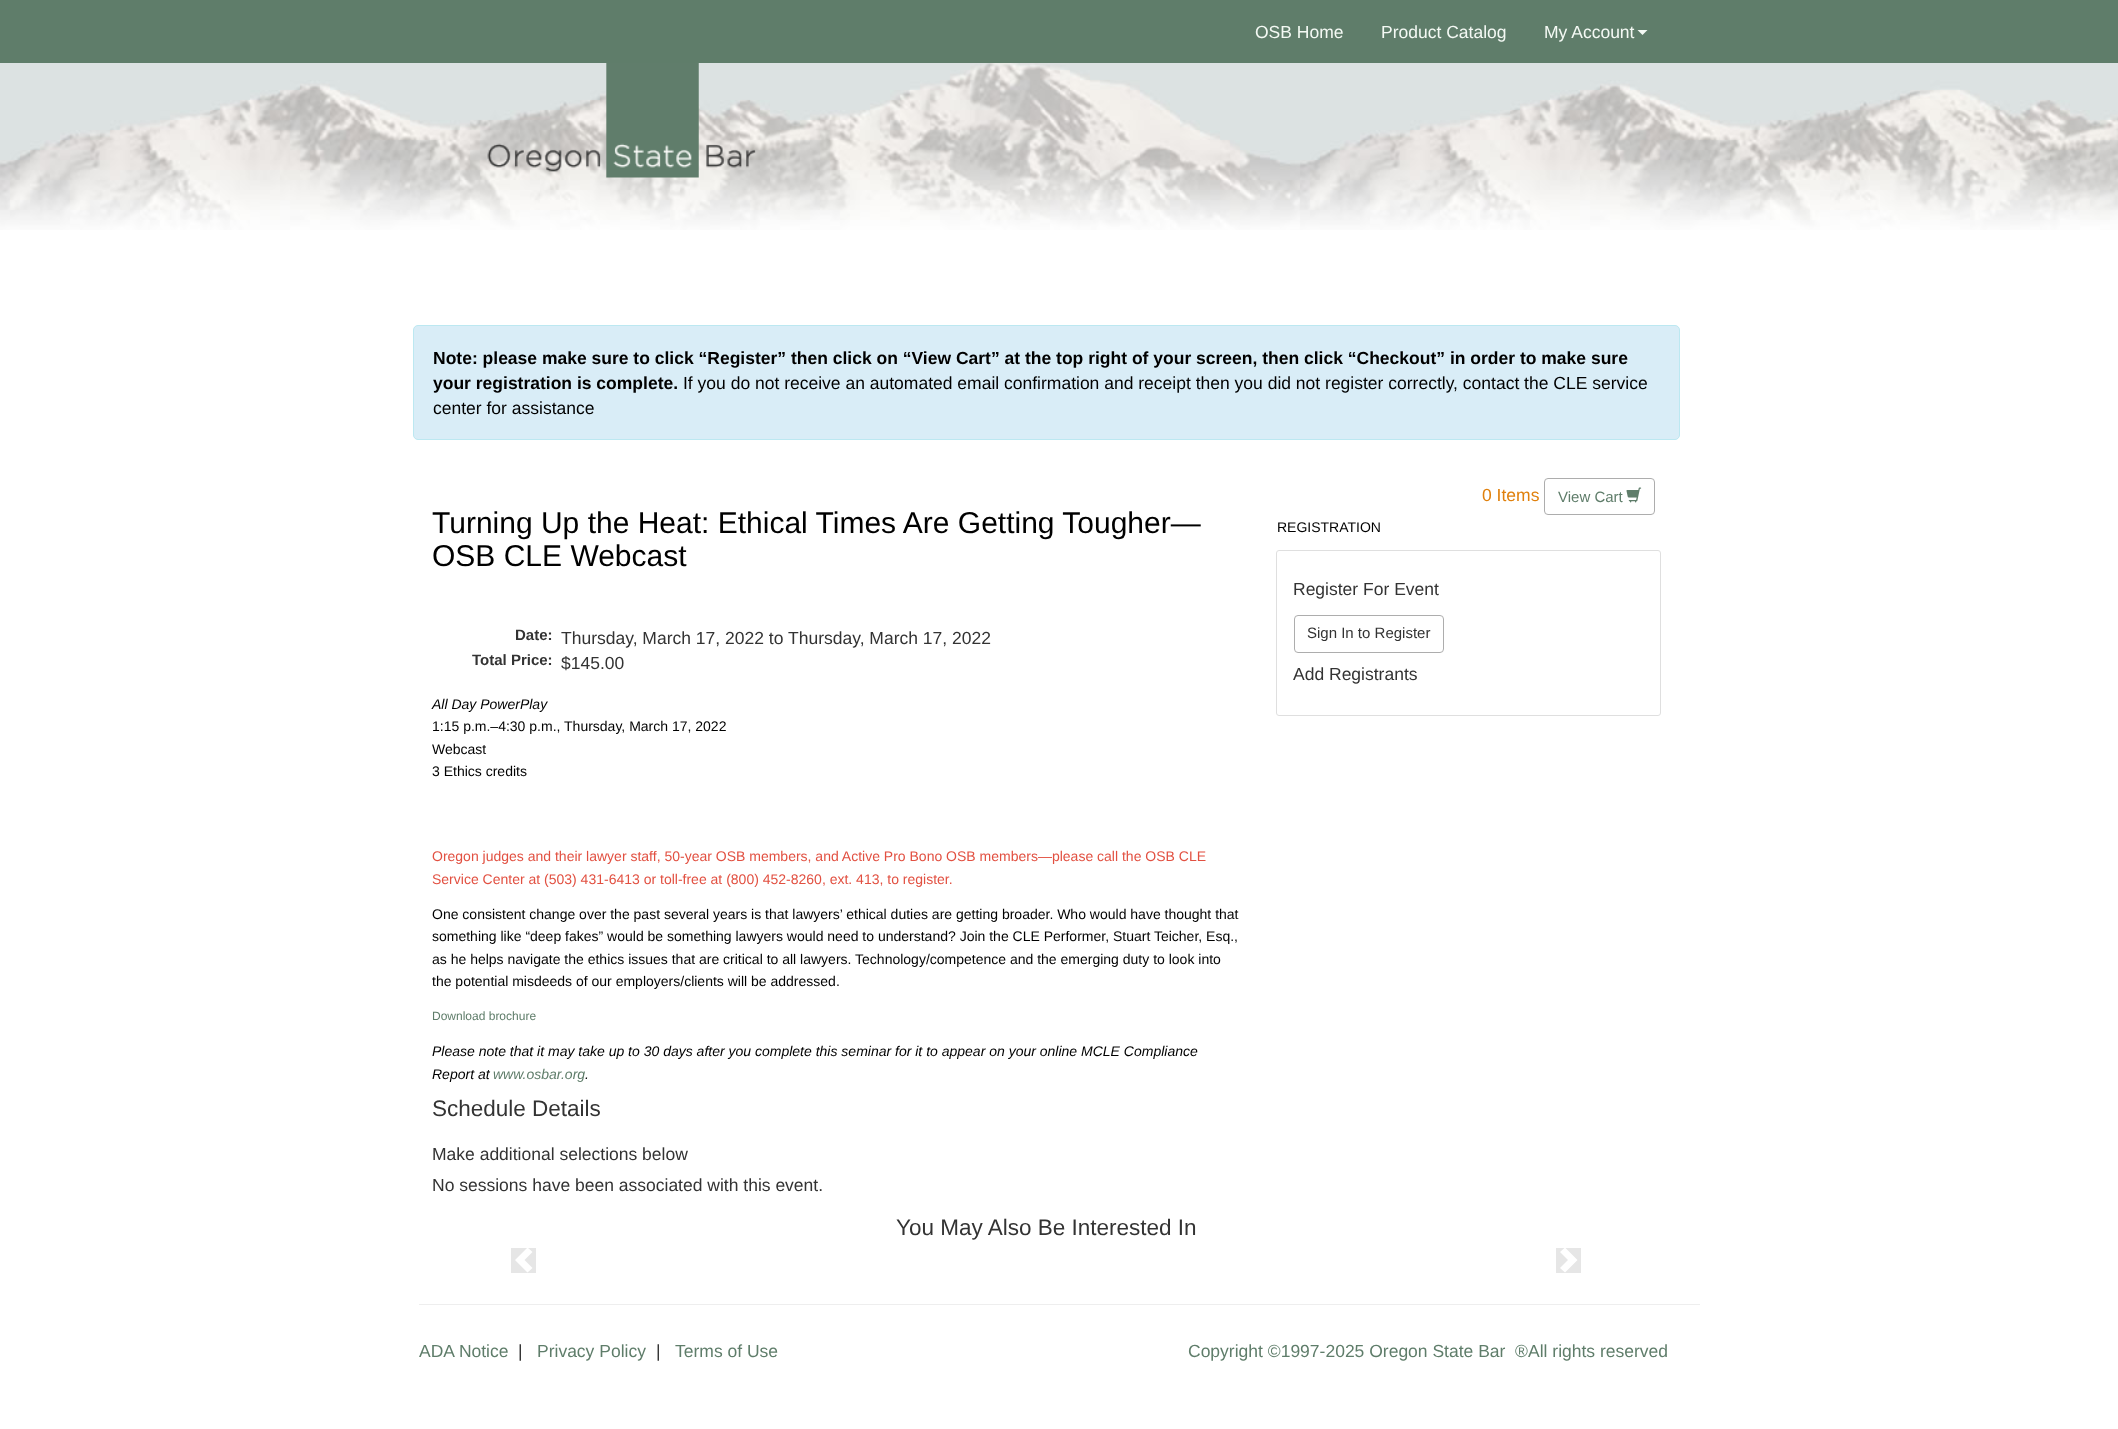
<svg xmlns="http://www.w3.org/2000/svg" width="2118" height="1429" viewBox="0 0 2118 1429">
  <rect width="100%" height="100%" fill="rgb(255,255,255)"/>
  <rect x="0" y="0" width="2118" height="63" fill="rgb(95,125,106)"/>
  <g font-family="Liberation Sans" font-size="17.5" fill="rgb(244,249,244)">
    <text x="1255" y="38">OSB Home</text>
    <text x="1381" y="38">Product Catalog</text>
    <text x="1544" y="38">My Account</text>
  </g>
  <path d="M1637.5 30H1647.5L1642.5 35Z" fill="rgb(244,249,244)"/>
  <image x="0" y="63" width="2118" height="167" href="pic1.png"/>
  <image x="487" y="63" width="269" height="115" href="pic2.png"/>
  <rect x="413.5" y="325.5" width="1266" height="114" rx="4.5" fill="rgb(217,237,247)" stroke="rgb(188,232,241)"/>
  <g font-family="Liberation Sans" font-size="17.5" font-weight="bold" fill="rgb(0,0,0)">
    <text>
      <tspan x="433" y="364">Note: please make sure to click “Register” then click on “View Cart” at the top right of your screen, then click “Checkout” in order to make sure</tspan>
      <tspan x="433" y="389">your registration is complete.</tspan>
    </text>
  </g>
  <g font-family="Liberation Sans" font-size="17.5" fill="rgb(0,0,0)">
    <text x="683" y="389">If you do not receive an automated email confirmation and receipt then you did not register correctly, contact the CLE service</text>
    <text x="433" y="414">center for assistance</text>
  </g>
  <text x="1482" y="501" font-family="Liberation Sans" font-size="17.5" fill="rgb(224,128,12)">0 Items</text>
  <rect x="1544.5" y="478.5" width="110" height="36" rx="3.5" fill="none" stroke="rgb(173,173,173)"/>
  <text x="1558" y="502" font-family="Liberation Sans" font-size="15" fill="rgb(95,125,106)">View Cart</text>
  <image x="1626" y="487" width="16" height="16" href="pic3.png"/>
  <g font-family="Liberation Sans" font-size="30" fill="rgb(0,0,0)">
    <text>
      <tspan x="432" y="533">Turning Up the Heat: Ethical Times Are Getting Tougher—</tspan>
      <tspan x="432" y="566">OSB CLE Webcast</tspan>
    </text>
  </g>
  <text x="515" y="640" font-family="Liberation Sans" font-size="15" font-weight="bold" fill="rgb(51,51,51)">Date:</text>
  <text x="561" y="644" font-family="Liberation Sans" font-size="17.5" fill="rgb(51,51,51)">Thursday, March 17, 2022 to Thursday, March 17, 2022</text>
  <text x="472" y="665" font-family="Liberation Sans" font-size="15" font-weight="bold" fill="rgb(51,51,51)">Total Price:</text>
  <text x="561" y="669" font-family="Liberation Sans" font-size="17.5" fill="rgb(51,51,51)">$145.00</text>
  <text x="432" y="709" font-family="Liberation Sans" font-size="14" font-style="italic" fill="rgb(0,0,0)">All Day PowerPlay</text>
  <g font-family="Liberation Sans" font-size="14" fill="rgb(0,0,0)">
    <text>
      <tspan x="432" y="731">1:15 p.m.–4:30 p.m., Thursday, March 17, 2022</tspan>
      <tspan x="432" y="754">Webcast</tspan>
      <tspan x="432" y="776">3 Ethics credits</tspan>
    </text>
  </g>
  <g font-family="Liberation Sans" font-size="14" fill="rgb(226,80,65)">
    <text>
      <tspan x="432" y="861">Oregon judges and their lawyer staff, 50-year OSB members, and Active Pro Bono OSB members—please call the OSB CLE</tspan>
      <tspan x="432" y="884">Service Center at (503) 431-6413 or toll-free at (800) 452-8260, ext. 413, to register.</tspan>
    </text>
  </g>
  <g font-family="Liberation Sans" font-size="14" fill="rgb(0,0,0)">
    <text>
      <tspan x="432" y="919">One consistent change over the past several years is that lawyers’ ethical duties are getting broader. Who would have thought that</tspan>
      <tspan x="432" y="941">something like “deep fakes” would be something lawyers would need to understand? Join the CLE Performer, Stuart Teicher, Esq.,</tspan>
      <tspan x="432" y="964">as he helps navigate the ethics issues that are critical to all lawyers. Technology/competence and the emerging duty to look into</tspan>
      <tspan x="432" y="986">the potential misdeeds of our employers/clients will be addressed.</tspan>
    </text>
  </g>
  <text x="432" y="1020" font-family="Liberation Sans" font-size="12" fill="rgb(95,125,106)">Download brochure</text>
  <g font-family="Liberation Sans" font-size="14" font-style="italic" fill="rgb(0,0,0)">
    <text>
      <tspan x="432" y="1056">Please note that it may take up to 30 days after you complete this seminar for it to appear on your online MCLE Compliance</tspan>
      <tspan x="432" y="1079">Report at</tspan>
    </text>
  </g>
  <text x="493" y="1079" font-family="Liberation Sans" font-size="14" font-style="italic" fill="rgb(95,125,106)">www.osbar.org</text>
  <text x="585" y="1079" font-family="Liberation Sans" font-size="14" font-style="italic" fill="rgb(0,0,0)">.</text>
  <text x="432" y="1116" font-family="Liberation Sans" font-size="22.5" fill="rgb(51,51,51)">Schedule Details</text>
  <g font-family="Liberation Sans" font-size="17.5" fill="rgb(51,51,51)">
    <text>
      <tspan x="432" y="1160">Make additional selections below</tspan>
      <tspan x="432" y="1191">No sessions have been associated with this event.</tspan>
    </text>
  </g>
  <text x="1277" y="532" font-family="Liberation Sans" font-size="14" fill="rgb(0,0,0)">REGISTRATION</text>
  <rect x="1276.5" y="550.5" width="384" height="165" rx="2.5" fill="none" stroke="rgb(223,223,223)"/>
  <text x="1293" y="595" font-family="Liberation Sans" font-size="17.5" fill="rgb(51,51,51)">Register For Event</text>
  <rect x="1294.5" y="615.5" width="149" height="37" rx="3.5" fill="none" stroke="rgb(173,173,173)"/>
  <text x="1307" y="638" font-family="Liberation Sans" font-size="15" fill="rgb(51,51,51)">Sign In to Register</text>
  <text x="1293" y="680" font-family="Liberation Sans" font-size="17.5" fill="rgb(51,51,51)">Add Registrants</text>
  <text x="896" y="1235" font-family="Liberation Sans" font-size="22.5" fill="rgb(51,51,51)">You May Also Be Interested In</text>
  <rect x="511" y="1248" width="25" height="25" fill="rgb(230,230,230)"/>
  <path d="M527.5 1247.5L515 1260L527.5 1272.5L532.5 1268L524.5 1260L532.5 1252Z" fill="rgb(255,255,255)"/>
  <rect x="1556" y="1248" width="25" height="25" fill="rgb(230,230,230)"/>
  <path d="M1565 1247.5L1560 1252L1568 1260L1560 1268L1565 1272.5L1577.5 1260Z" fill="rgb(255,255,255)"/>
  <rect x="419" y="1304" width="1281" height="1" fill="rgb(238,238,238)"/>
  <text x="419" y="1357" font-family="Liberation Sans" font-size="17.5" fill="rgb(95,125,106)">ADA Notice</text>
  <text x="518" y="1357" font-family="Liberation Sans" font-size="17.5" fill="rgb(51,51,51)">|</text>
  <text x="537" y="1357" font-family="Liberation Sans" font-size="17.5" fill="rgb(95,125,106)">Privacy Policy</text>
  <text x="656" y="1357" font-family="Liberation Sans" font-size="17.5" fill="rgb(51,51,51)">|</text>
  <g font-family="Liberation Sans" font-size="17.5" fill="rgb(95,125,106)">
    <text x="675" y="1357">Terms of Use</text>
    <text x="1188" y="1357" xml:space="preserve">Copyright ©1997-2025 Oregon State Bar  ®All rights reserved</text>
  </g>
</svg>
